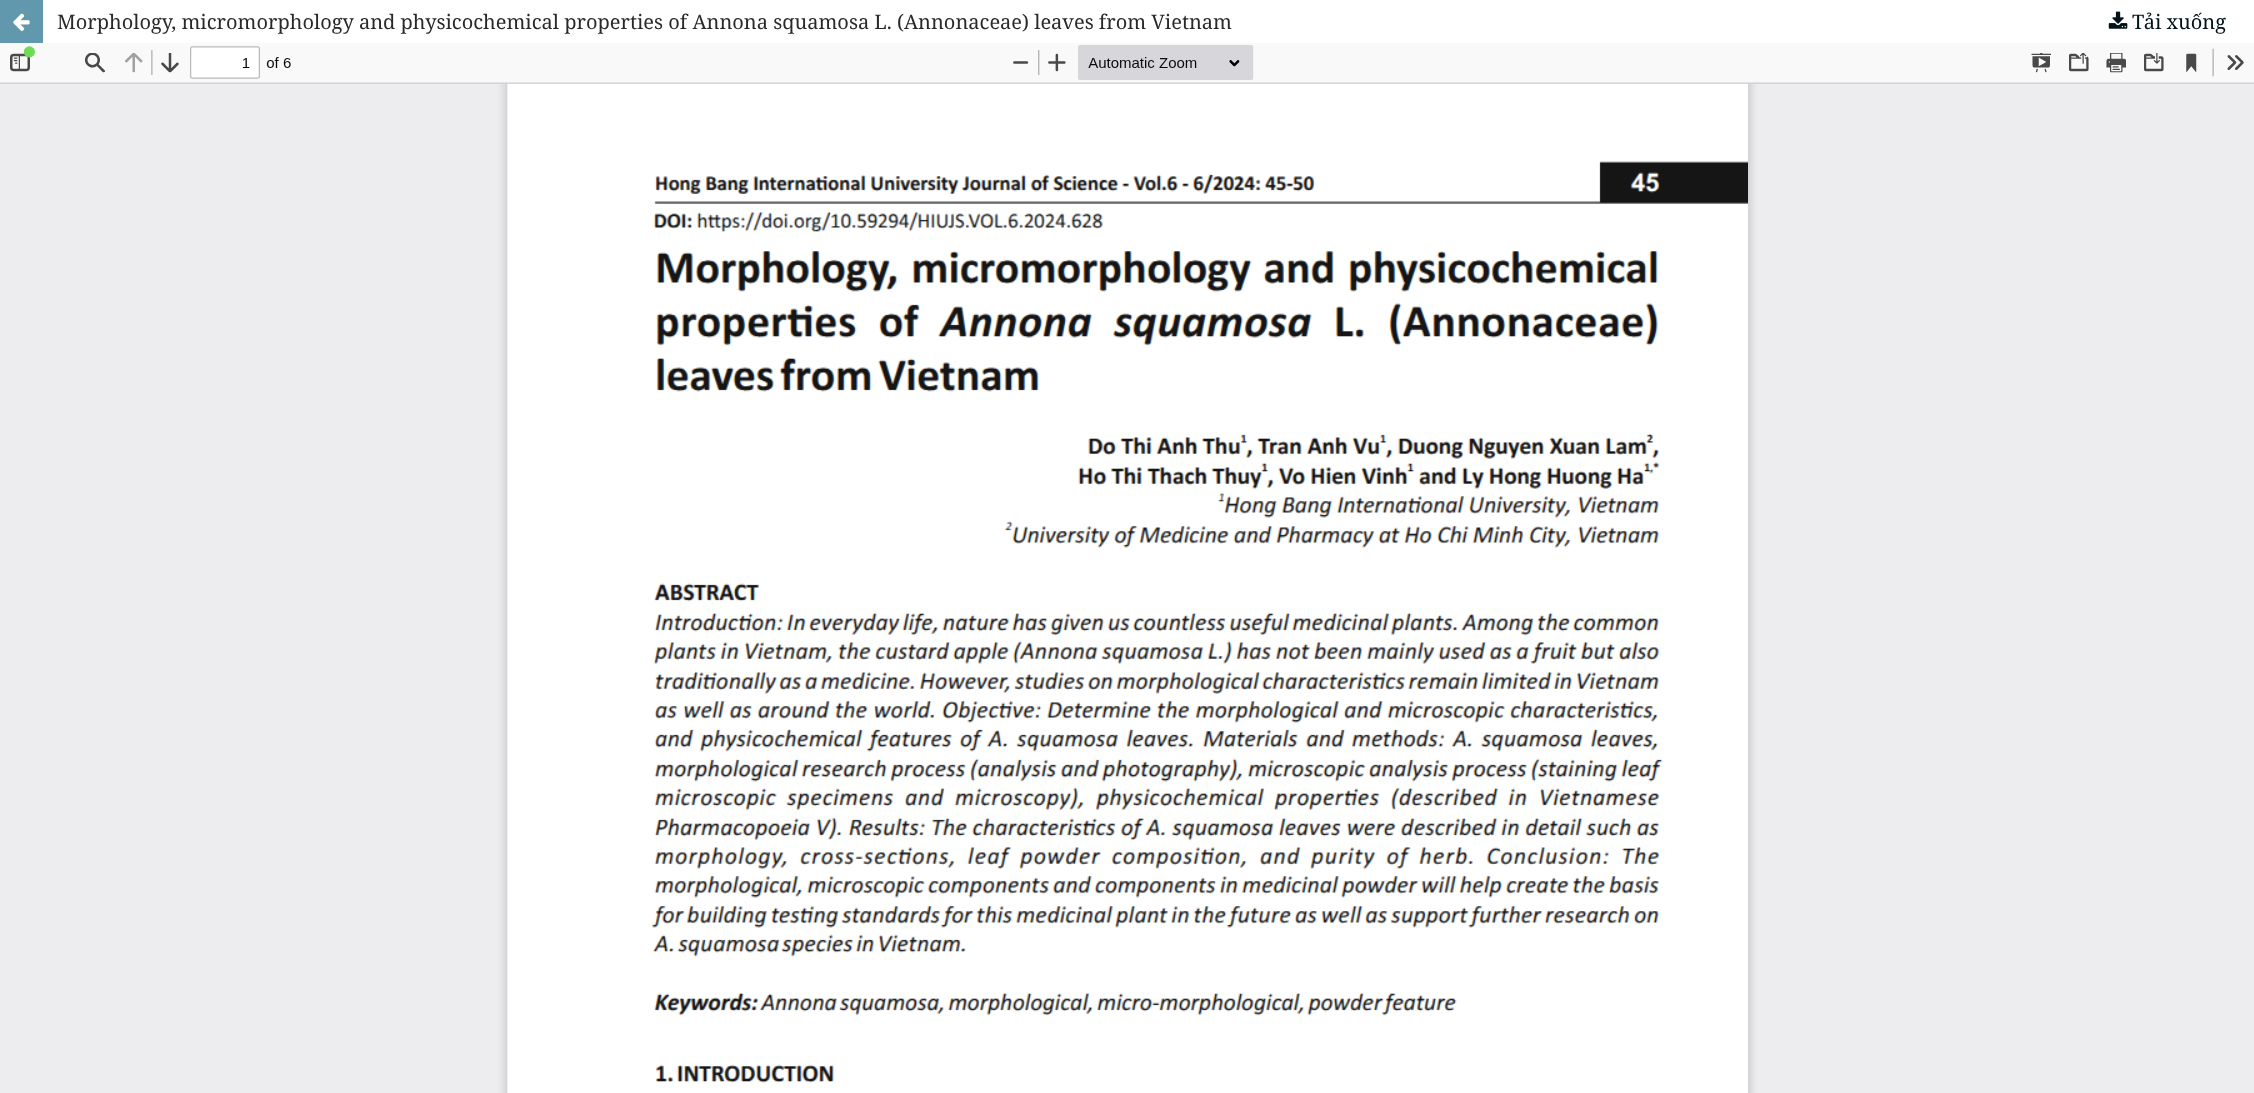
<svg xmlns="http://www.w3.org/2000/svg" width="2254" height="1093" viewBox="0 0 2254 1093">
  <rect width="100%" height="100%" fill="rgb(255,255,255)"/>
  <rect x="0" y="0" width="43" height="43" fill="rgb(98,152,174)"/>
  <image x="13" y="13" width="17" height="18" href="pic1.png"/>
  <text x="57" y="29" font-family="Noto Serif" font-size="20" fill="rgb(41,41,41)">Morphology, micromorphology and physicochemical properties of Annona squamosa L. (Annonaceae) leaves from Vietnam</text>
  <image x="2108" y="11" width="20" height="18" href="pic2.png"/>
  <text x="2132" y="29" font-family="Noto Serif" font-size="20" fill="rgb(2,18,25)">Tải xuống</text>
  <image x="0" y="43" width="2254" height="1050" href="pic3.png"/>
</svg>
